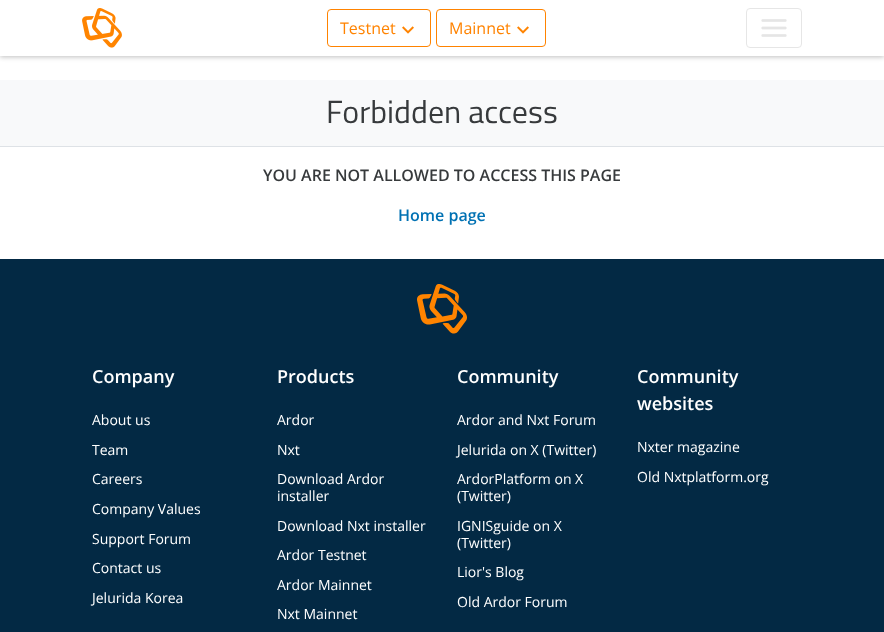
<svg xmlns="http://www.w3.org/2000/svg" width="884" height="632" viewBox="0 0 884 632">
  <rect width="100%" height="100%" fill="rgb(255,255,255)"/>
  <rect x="0" y="1" width="884" height="56" fill="rgba(0,0,0,0.25)" filter="blur(2.5px)"/>
  <rect x="0" y="0" width="884" height="56" fill="rgb(255,255,255)"/>
  <image x="82" y="8" width="40" height="40" href="pic1.png"/>
  <rect x="327.5" y="9.5" width="103" height="37" rx="3.5" fill="none" stroke="rgb(255,131,0)"/>
  <text x="340" y="34" font-family="Open Sans" font-size="16" fill="rgb(255,131,0)">Testnet</text>
  <image x="402" y="26" width="12" height="8" href="pic2.png"/>
  <rect x="436.5" y="9.5" width="109" height="37" rx="3.5" fill="none" stroke="rgb(255,131,0)"/>
  <text x="449" y="34" font-family="Open Sans" font-size="16" fill="rgb(255,131,0)">Mainnet</text>
  <image x="517" y="26" width="12" height="8" href="pic2.png"/>
  <rect x="746.5" y="8.5" width="55" height="39" rx="3.5" fill="none" stroke="rgb(230,230,230)"/>
  <image x="761" y="19" width="26" height="18" href="pic3.png"/>
  <rect x="0" y="80" width="884" height="66" fill="rgb(248,249,250)"/>
  <rect x="0" y="146" width="884" height="1" fill="rgb(222,226,230)"/>
  <text x="326" y="123" font-family="Titillium Web" font-size="32" fill="rgb(55,58,60)">Forbidden access</text>
  <text x="263" y="181" font-family="Open Sans" font-size="16" font-weight="600" fill="rgb(55,58,60)">YOU ARE NOT ALLOWED TO ACCESS THIS PAGE</text>
  <text x="398" y="221" font-family="Open Sans" font-size="16" font-weight="600" fill="rgb(0,113,179)">Home page</text>
  <rect x="0" y="259" width="884" height="373" fill="rgb(3,41,68)"/>
  <image x="417" y="284" width="50" height="50" href="pic4.png"/>
  <text x="92" y="383" font-family="Open Sans" font-size="18" font-weight="600" fill="rgb(255,255,255)">Company</text>
  <g font-family="Open Sans" font-size="14" fill="rgb(255,255,255)">
    <text x="92" y="425">About us</text>
    <text x="92" y="455">Team</text>
    <text x="92" y="484">Careers</text>
    <text x="92" y="514">Company Values</text>
    <text x="92" y="544">Support Forum</text>
    <text x="92" y="573">Contact us</text>
    <text x="92" y="603">Jelurida Korea</text>
  </g>
  <text x="277" y="383" font-family="Open Sans" font-size="18" font-weight="600" fill="rgb(255,255,255)">Products</text>
  <g font-family="Open Sans" font-size="14" fill="rgb(255,255,255)">
    <text x="277" y="425">Ardor</text>
    <text x="277" y="455">Nxt</text>
    <text>
      <tspan x="277" y="484">Download Ardor</tspan>
      <tspan x="277" y="501">installer</tspan>
    </text>
    <text x="277" y="531">Download Nxt installer</text>
    <text x="277" y="560">Ardor Testnet</text>
    <text x="277" y="590">Ardor Mainnet</text>
    <text x="277" y="619">Nxt Mainnet</text>
  </g>
  <text x="457" y="383" font-family="Open Sans" font-size="18" font-weight="600" fill="rgb(255,255,255)">Community</text>
  <g font-family="Open Sans" font-size="14" fill="rgb(255,255,255)">
    <text x="457" y="425">Ardor and Nxt Forum</text>
    <text x="457" y="455">Jelurida on X (Twitter)</text>
    <text>
      <tspan x="457" y="484">ArdorPlatform on X</tspan>
      <tspan x="457" y="501">(Twitter)</tspan>
    </text>
    <text>
      <tspan x="457" y="531">IGNISguide on X</tspan>
      <tspan x="457" y="548">(Twitter)</tspan>
    </text>
    <text x="457" y="577">Lior's Blog</text>
    <text x="457" y="607">Old Ardor Forum</text>
  </g>
  <g font-family="Open Sans" font-size="18" font-weight="600" fill="rgb(255,255,255)">
    <text>
      <tspan x="637" y="383">Community</tspan>
      <tspan x="637" y="410">websites</tspan>
    </text>
  </g>
  <g font-family="Open Sans" font-size="14" fill="rgb(255,255,255)">
    <text x="637" y="452">Nxter magazine</text>
    <text x="637" y="482">Old Nxtplatform.org</text>
  </g>
</svg>
